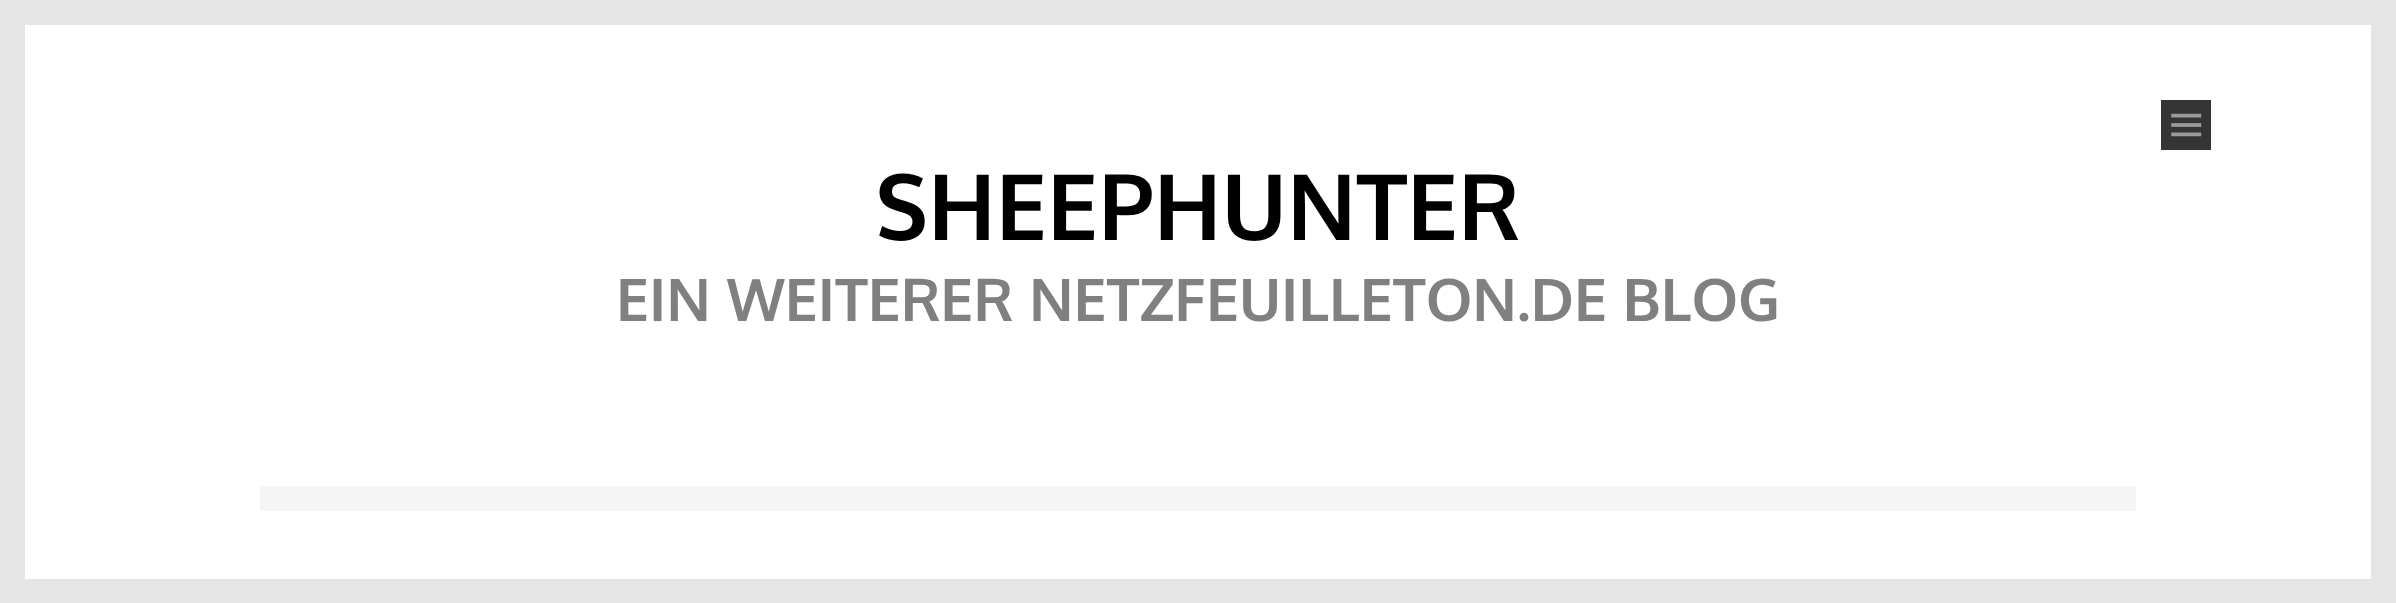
<svg xmlns="http://www.w3.org/2000/svg" width="2396" height="603" viewBox="0 0 2396 603">
  <rect width="100%" height="100%" fill="rgb(255,255,255)"/>
  <rect x="2371" y="25" width="25" height="554" fill="rgb(229,229,229)"/>
  <rect x="0" y="25" width="25" height="554" fill="rgb(229,229,229)"/>
  <rect x="0" y="0" width="2396" height="25" fill="rgb(229,229,229)"/>
  <rect x="260" y="486" width="1876" height="25" fill="rgb(245,245,245)"/>
  <rect x="2161" y="100" width="50" height="50" fill="rgb(52,52,52)"/>
  <image x="2171" y="113" width="31" height="24" href="pic1.png"/>
  <text x="875" y="240" font-family="Oxygen" font-size="91.25" font-weight="bold" fill="rgb(0,0,0)">SHEEPHUNTER</text>
  <text x="616" y="321" font-family="Oxygen" font-size="58.75" font-weight="bold" fill="rgb(128,128,128)">EIN WEITERER NETZFEUILLETON.DE BLOG</text>
  <rect x="0" y="579" width="2396" height="24" fill="rgb(229,229,229)"/>
</svg>
